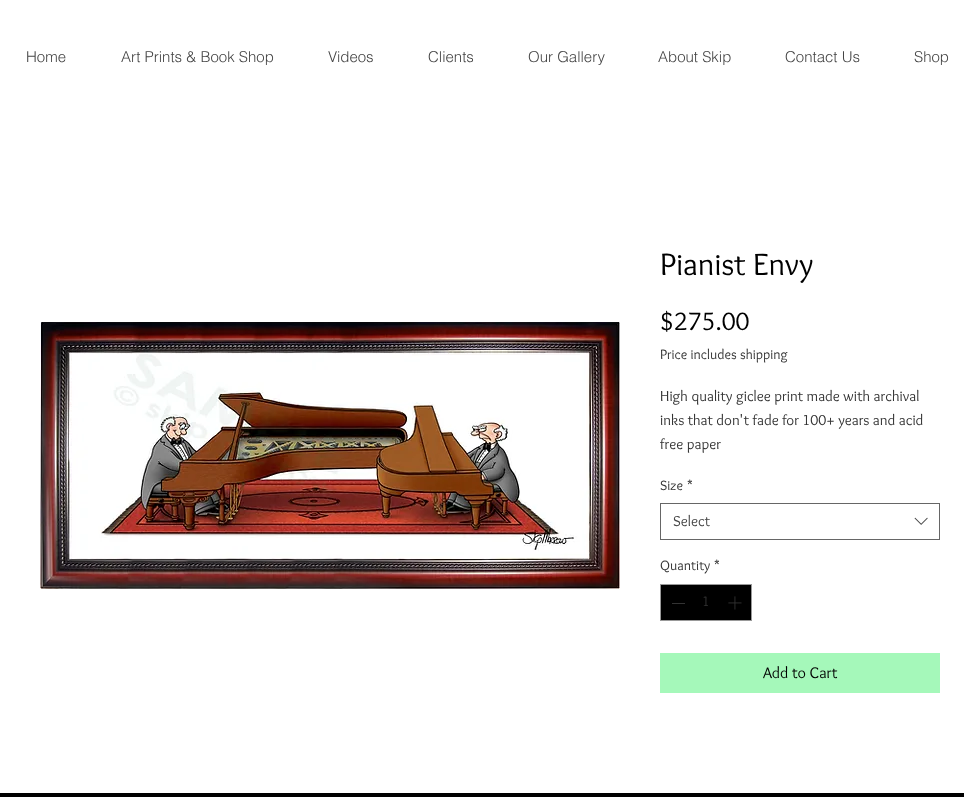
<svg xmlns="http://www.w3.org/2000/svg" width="964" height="797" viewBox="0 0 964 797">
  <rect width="100%" height="100%" fill="rgb(255,255,255)"/>
  <g font-family="helvetica" font-size="15" font-weight="300" fill="rgb(68,68,68)">
    <text x="26" y="62">Home</text>
    <text x="121" y="62">Art Prints &amp; Book Shop</text>
    <text x="328" y="62">Videos</text>
    <text x="428" y="62">Clients</text>
    <text x="528" y="62">Our Gallery</text>
    <text x="658" y="62">About Skip</text>
    <text x="785" y="62">Contact Us</text>
    <text x="914" y="62">Shop</text>
  </g>
  <image x="40" y="322" width="580" height="267" href="pic1.png"/>
  <text x="660" y="275" font-family="Overlock" font-size="32" fill="rgb(0,0,0)">Pianist Envy</text>
  <text x="660" y="330" font-family="Overlock" font-size="26" fill="rgb(0,0,0)">$275.00</text>
  <text x="660" y="359" font-family="Overlock" font-size="14" fill="rgb(51,51,51)">Price includes shipping</text>
  <g font-family="Overlock" font-size="15" fill="rgb(51,51,51)">
    <text>
      <tspan x="660" y="401">High quality giclee print made with archival</tspan>
      <tspan x="660" y="425">inks that don't fade for 100+ years and acid</tspan>
      <tspan x="660" y="449">free paper</tspan>
    </text>
  </g>
  <g font-family="Overlock" font-size="14" fill="rgb(51,51,51)">
    <text x="660" y="490">Size</text>
    <text x="687" y="490">*</text>
  </g>
  <rect x="660.5" y="503.5" width="279" height="36" fill="none" stroke="rgb(102,102,102)"/>
  <text x="673" y="526" font-family="Overlock" font-size="15" fill="rgb(68,68,68)">Select</text>
  <image x="914" y="517" width="14" height="8" href="pic2.png"/>
  <g font-family="Overlock" font-size="14" fill="rgb(51,51,51)">
    <text x="660" y="570">Quantity</text>
    <text x="714" y="570">*</text>
  </g>
  <rect x="660.5" y="584.5" width="91" height="36" fill="rgb(0,0,0)" stroke="rgb(153,153,153)"/>
  <rect x="672" y="603" width="13" height="1" fill="rgb(51,51,51)"/>
  <text x="702" y="606" font-family="Overlock" font-size="14" fill="rgb(51,51,51)">1</text>
  <image x="728" y="596" width="14" height="14" href="pic3.png"/>
  <rect x="660" y="653" width="280" height="40" fill="rgb(165,248,186)"/>
  <text x="763" y="678" font-family="Overlock" font-size="16" fill="rgb(0,0,0)">Add to Cart</text>
  <rect x="0" y="793" width="964" height="4" fill="rgb(0,0,0)"/>
</svg>
